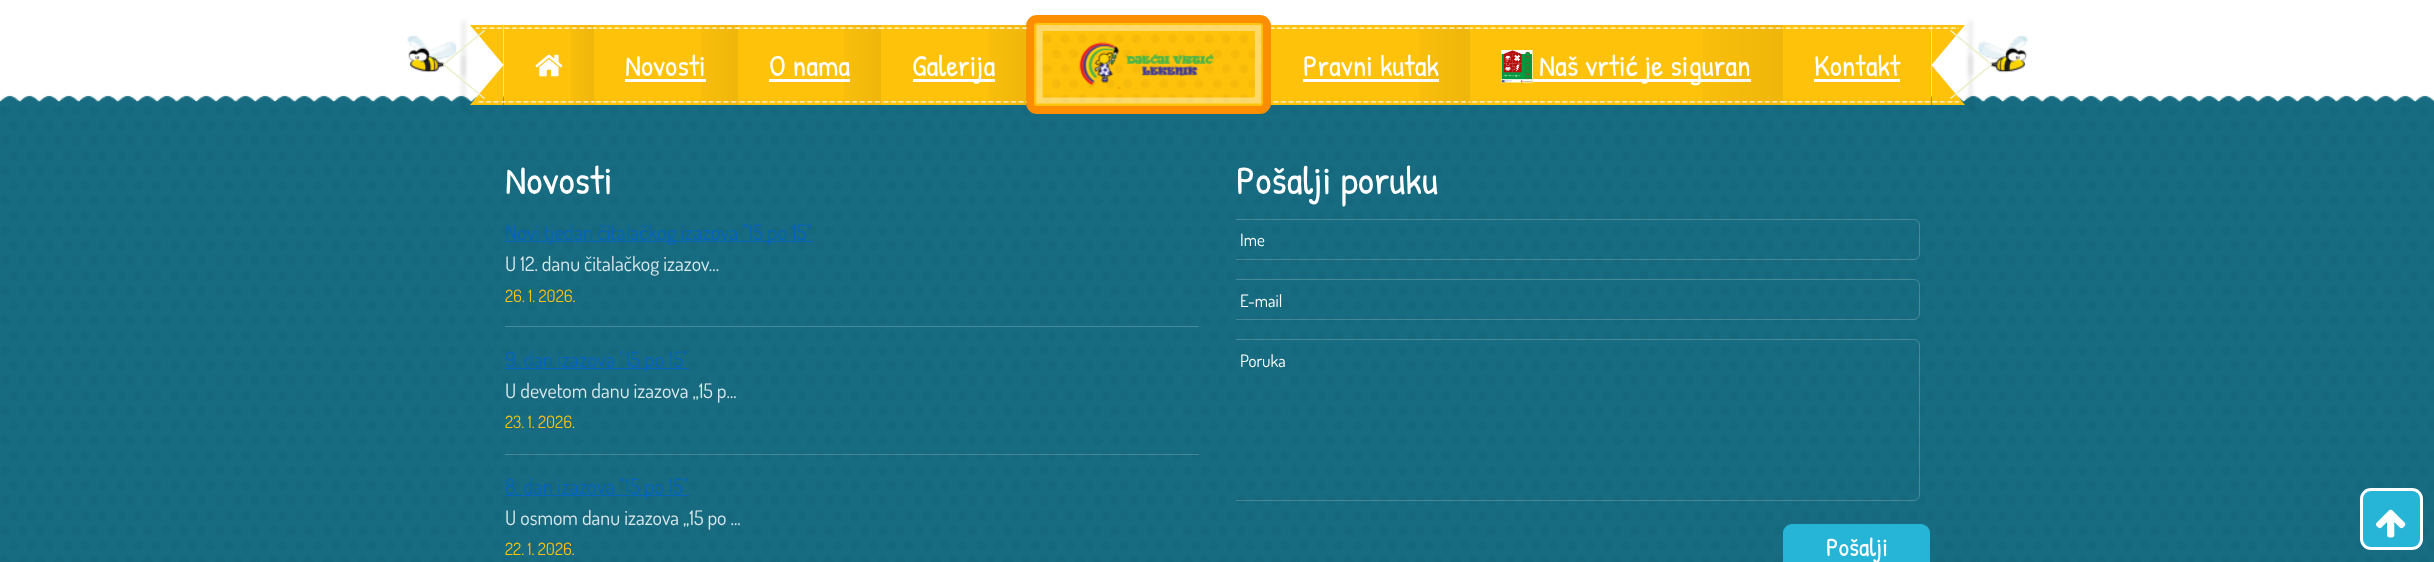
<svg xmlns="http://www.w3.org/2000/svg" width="2434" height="562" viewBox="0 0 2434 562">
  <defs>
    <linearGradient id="g1" gradientUnits="userSpaceOnUse" x1="594" y1="65" x2="558" y2="65"><stop offset="0" stop-color="rgb(0,0,0)" stop-opacity="0.06"/><stop offset="1" stop-color="rgb(0,0,0)" stop-opacity="0"/></linearGradient>
    <linearGradient id="g2" gradientUnits="userSpaceOnUse" x1="738" y1="65" x2="680" y2="65"><stop offset="0" stop-color="rgb(0,0,0)" stop-opacity="0.06"/><stop offset="1" stop-color="rgb(0,0,0)" stop-opacity="0"/></linearGradient>
    <linearGradient id="g3" gradientUnits="userSpaceOnUse" x1="881" y1="65" x2="824" y2="65"><stop offset="0" stop-color="rgb(0,0,0)" stop-opacity="0.06"/><stop offset="1" stop-color="rgb(0,0,0)" stop-opacity="0"/></linearGradient>
    <linearGradient id="g4" gradientUnits="userSpaceOnUse" x1="1026" y1="65" x2="969" y2="65"><stop offset="0" stop-color="rgb(0,0,0)" stop-opacity="0.06"/><stop offset="1" stop-color="rgb(0,0,0)" stop-opacity="0"/></linearGradient>
    <linearGradient id="g5" gradientUnits="userSpaceOnUse" x1="1470" y1="65" x2="1391" y2="65"><stop offset="0" stop-color="rgb(0,0,0)" stop-opacity="0.06"/><stop offset="1" stop-color="rgb(0,0,0)" stop-opacity="0"/></linearGradient>
    <linearGradient id="g6" gradientUnits="userSpaceOnUse" x1="1783" y1="65" x2="1658" y2="65"><stop offset="0" stop-color="rgb(0,0,0)" stop-opacity="0.06"/><stop offset="1" stop-color="rgb(0,0,0)" stop-opacity="0"/></linearGradient>
    <clipPath id="clip1"><rect x="1236" y="104" width="694" height="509"/></clipPath>
  </defs>
  <rect width="100%" height="100%" fill="rgb(255,255,255)"/>
  <rect x="0" y="104" width="2434" height="458" fill="rgb(23,108,129)"/>
  <image x="0" y="95" width="2434" height="9" href="pic15.png"/>
  <rect x="504" y="25" width="522" height="80" fill="rgb(254,194,11)"/>
  <image x="407" y="36" width="50" height="37" href="pic1.png"/>
  <path d="M470 25H503.5V65Z" fill="rgb(254,194,11)"/>
  <path d="M503.5 105H470L503.5 65Z" fill="rgb(254,194,11)"/>
  <rect x="463" y="21" width="1" height="54" fill="rgba(0,0,0,0.3)" filter="blur(2px)"/>
  <path d="M444 65L443 64L484 30L485 31Z" fill="rgb(231,240,202)"/>
  <image x="0" y="106" width="2434" height="456" href="pic14.png"/>
  <rect x="463" y="56" width="1" height="54" fill="rgba(0,0,0,0.3)" filter="blur(2px)"/>
  <path d="M485 98L484 99L443 65L444 64Z" fill="rgb(231,240,202)"/>
  <rect x="571" y="25" width="23" height="80" fill="url(#g1)"/>
  <image x="535" y="54" width="28" height="23" href="pic3.png"/>
  <image x="476" y="27" width="118" height="76" href="pic2.png"/>
  <rect x="1030" y="19" width="237" height="91" rx="7" fill="rgb(254,194,11)" stroke="rgb(253,142,0)" stroke-width="8"/>
  <image x="1036" y="25" width="225" height="78" href="pic4.png"/>
  <path d="M1039.5 28H1258V100.5H1039.5Z" fill="none" stroke="rgba(255,255,255,0.4)" stroke-width="6.2"/>
  <image x="1079" y="42" width="136" height="47" href="pic5.png"/>
  <rect x="625" y="79" width="81" height="3" fill="rgb(255,255,255)"/>
  <rect x="701" y="25" width="37" height="80" fill="url(#g2)"/>
  <text x="625" y="76" font-family="Patrick Hand" font-size="30" fill="rgb(255,255,255)">Novosti</text>
  <image x="593" y="27" width="145" height="76" href="pic6.png"/>
  <rect x="769" y="79" width="81" height="3" fill="rgb(255,255,255)"/>
  <rect x="844" y="25" width="37" height="80" fill="url(#g3)"/>
  <text x="769" y="76" font-family="Patrick Hand" font-size="30" fill="rgb(255,255,255)">O nama</text>
  <image x="737" y="27" width="144" height="76" href="pic7.png"/>
  <rect x="913" y="79" width="82" height="3" fill="rgb(255,255,255)"/>
  <rect x="989" y="25" width="37" height="80" fill="url(#g4)"/>
  <text x="912" y="76" font-family="Patrick Hand" font-size="30" fill="rgb(255,255,255)">Galerija</text>
  <image x="881" y="27" width="146" height="76" href="pic8.png"/>
  <rect x="1271" y="25" width="660" height="80" fill="rgb(254,194,11)"/>
  <rect x="1303" y="79" width="136" height="3" fill="rgb(255,255,255)"/>
  <rect x="1419" y="25" width="51" height="80" fill="url(#g5)"/>
  <text x="1303" y="76" font-family="Patrick Hand" font-size="30" fill="rgb(255,255,255)">Pravni kutak</text>
  <image x="1271" y="27" width="199" height="76" href="pic9.png"/>
  <rect x="1533" y="79" width="218" height="3" fill="rgb(255,255,255)"/>
  <rect x="1703" y="25" width="80" height="80" fill="url(#g6)"/>
  <image x="1501" y="50" width="32" height="33" href="pic11.png"/>
  <text x="1539" y="76" font-family="Patrick Hand" font-size="30" fill="rgb(255,255,255)">Naš vrtić je siguran</text>
  <image x="1470" y="27" width="313" height="76" href="pic10.png"/>
  <path d="M1931.5 25H1965L1931.5 65Z" fill="rgb(254,194,11)"/>
  <path d="M1965 105H1931.5V65Z" fill="rgb(254,194,11)"/>
  <rect x="1970" y="21" width="1" height="54" fill="rgba(0,0,0,0.3)" filter="blur(2px)"/>
  <image x="1978" y="36" width="50" height="37" href="pic13.png"/>
  <path d="M1950 31L1951 30L1992 64L1991 65Z" fill="rgb(231,240,202)"/>
  <rect x="1970" y="56" width="1" height="54" fill="rgba(0,0,0,0.3)" filter="blur(2px)"/>
  <path d="M1991 64L1992 65L1951 99L1950 98Z" fill="rgb(231,240,202)"/>
  <text x="1814" y="76" font-family="Patrick Hand" font-size="30" fill="rgb(255,255,255)">Kontakt</text>
  <rect x="1814" y="79" width="86" height="3" fill="rgb(255,255,255)"/>
  <image x="1782" y="27" width="177" height="76" href="pic12.png"/>
  <text x="505" y="194" font-family="Patrick Hand" font-size="40" fill="rgb(255,255,255)">Novosti</text>
  <rect x="505" y="326" width="694" height="1" fill="rgb(69,137,154)"/>
  <rect x="505" y="241" width="308" height="1" fill="rgb(5,99,193)"/>
  <text x="505" y="240" font-family="Dosis" font-size="21" fill="rgb(5,99,193)">Novi tjedan čitalačkog izazova "15 po 15"</text>
  <text x="505" y="271" font-family="Dosis" font-size="20" fill="rgb(220,233,236)">U 12. danu čitalačkog izazov...</text>
  <text x="505" y="302" font-family="Dosis" font-size="17" fill="rgb(254,194,11)">26. 1. 2026.</text>
  <rect x="505" y="454" width="694" height="1" fill="rgba(255,255,255,0.2)"/>
  <rect x="505" y="368" width="184" height="1" fill="rgb(5,99,193)"/>
  <text x="505" y="367" font-family="Dosis" font-size="21" fill="rgb(5,99,193)">9. dan izazova "15 po 15"</text>
  <text x="505" y="398" font-family="Dosis" font-size="20" fill="rgb(220,233,236)">U devetom danu izazova „15 p...</text>
  <text x="505" y="428" font-family="Dosis" font-size="17" fill="rgb(254,194,11)">23. 1. 2026.</text>
  <rect x="505" y="495" width="184" height="1" fill="rgb(5,99,193)"/>
  <text x="505" y="494" font-family="Dosis" font-size="21" fill="rgb(5,99,193)">8. dan izazova "15 po 15"</text>
  <text x="505" y="525" font-family="Dosis" font-size="20" fill="rgb(220,233,236)">U osmom danu izazova „15 po ...</text>
  <text x="505" y="555" font-family="Dosis" font-size="17" fill="rgb(254,194,11)">22. 1. 2026.</text>
  <text x="1236" y="194" font-family="Patrick Hand" font-size="40" fill="rgb(255,255,255)">Pošalji poruku</text>
  <g clip-path="url(#clip1)">
    <rect x="1226.5" y="219.5" width="693" height="40" rx="5.5" fill="none" stroke="rgba(255,255,255,0.2)"/>
  </g>
  <text x="1240" y="246" font-family="Dosis" font-size="17" fill="rgb(255,255,255)">Ime</text>
  <g clip-path="url(#clip1)">
    <rect x="1226.5" y="279.5" width="693" height="40" rx="5.5" fill="none" stroke="rgba(255,255,255,0.2)"/>
  </g>
  <text x="1240" y="307" font-family="Dosis" font-size="17" fill="rgb(255,255,255)">E-mail</text>
  <g clip-path="url(#clip1)">
    <rect x="1226.5" y="339.5" width="693" height="161" rx="5.5" fill="none" stroke="rgba(255,255,255,0.2)"/>
  </g>
  <text x="1240" y="367" font-family="Dosis" font-size="17" fill="rgb(255,255,255)">Poruka</text>
  <rect x="1783" y="524" width="147" height="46" rx="9" fill="rgb(38,180,215)"/>
  <text x="1826" y="556" font-family="Patrick Hand" font-size="26" fill="rgb(255,255,255)">Pošalji</text>
  <rect x="2361.5" y="489.5" width="60" height="59" rx="9.5" fill="rgb(38,180,215)" stroke="rgb(255,255,255)" stroke-width="3"/>
  <image x="2376" y="509" width="30" height="29" href="pic16.png"/>
</svg>
